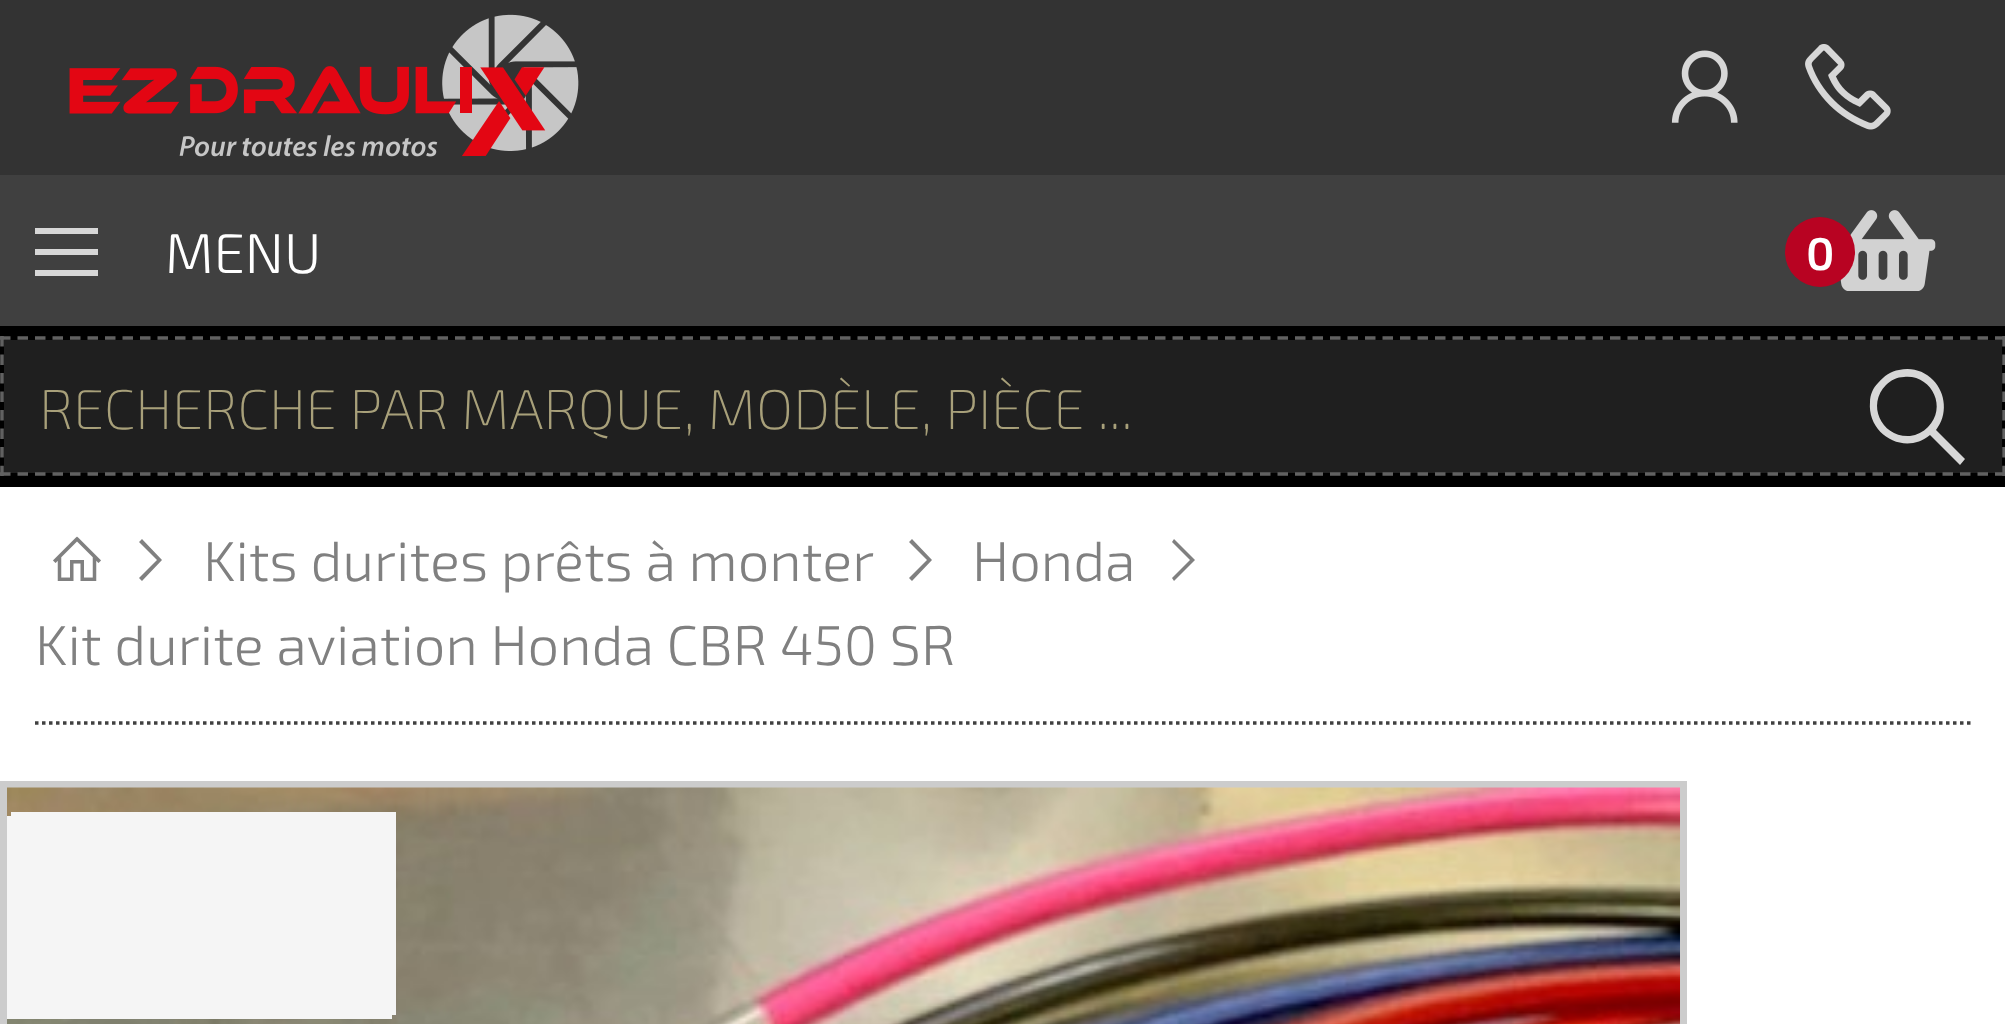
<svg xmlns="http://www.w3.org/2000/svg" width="2005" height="1024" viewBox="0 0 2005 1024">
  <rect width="100%" height="100%" fill="rgb(255,255,255)"/>
  <rect x="0" y="0" width="2005" height="175" fill="rgb(51,51,51)"/>
  <image x="1671" y="50" width="67" height="73" href="pic1.png"/>
  <image x="1805" y="44" width="86" height="86" href="pic2.png"/>
  <rect x="0" y="175" width="2005" height="151" fill="rgb(64,64,64)"/>
  <path d="M35 228H98V234H35ZM35 249H98V255H35ZM35 270H98V276H35Z" fill="rgb(215,215,215)"/>
  <text x="165" y="273" font-family="'Exo 2'" font-size="56" font-weight="300" fill="rgb(255,255,255)">MENU</text>
  <image x="69" y="14" width="510" height="143" href="pic3.png"/>
  <image x="1840" y="210" width="96" height="81" href="pic4.png"/>
  <circle cx="1820" cy="252" r="35" fill="rgb(184,3,34)"/>
  <text x="1806" y="270" font-family="'Exo 2'" font-size="46" font-weight="600" fill="rgb(255,255,255)">0</text>
  <rect x="0" y="326" width="2005" height="161" fill="rgb(0,0,0)"/>
  <rect x="4" y="340" width="1998" height="133" fill="rgb(31,31,31)"/>
  <path d="M0 338H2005.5" fill="none" stroke="rgb(97,97,97)" stroke-width="3.5" stroke-dasharray="10.5 7"/>
  <path d="M2004 336V476" fill="none" stroke="rgb(97,97,97)" stroke-width="3.5" stroke-dasharray="10.5 8.02"/>
  <path d="M0 474H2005.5" fill="none" stroke="rgb(97,97,97)" stroke-width="3.5" stroke-dasharray="10.5 7"/>
  <path d="M2 336V476" fill="none" stroke="rgb(97,97,97)" stroke-width="3.5" stroke-dasharray="10.5 8.02"/>
  <text x="39" y="429" font-family="'Exo 2'" font-size="56" font-weight="200" fill="rgb(168,160,122)">RECHERCHE PAR MARQUE, MODÈLE, PIÈCE ...</text>
  <path d="M1933 380C1924 371 1912 367 1899 370C1891 371 1884 376 1878 383C1873 388 1870 395 1870 402C1867 435 1905 456 1930 435L1960 465L1965 459L1936 430C1948 415 1946 393 1933 380ZM1886 385C1891 380 1897 377 1904 377C1931 374 1948 407 1928 427C1923 432 1917 435 1910 436C1882 438 1866 405 1886 385Z" fill="rgb(215,215,215)"/>
  <path d="M35 723H1970.5" fill="none" stroke="rgb(64,64,64)" stroke-width="3.5" stroke-dasharray="3.5 3.5"/>
  <image x="53" y="536" width="48" height="45" href="pic5.png"/>
  <path d="M142 539L162 560L142 581L139 578L157 560L139 542Z" fill="rgb(128,128,128)"/>
  <text x="203" y="581" font-family="'Exo 2'" font-size="56" font-weight="300" fill="rgb(128,128,128)">Kits durites prêts à monter</text>
  <path d="M912 539L932 560L912 581L909 578L927 560L909 542Z" fill="rgb(128,128,128)"/>
  <text x="972" y="581" font-family="'Exo 2'" font-size="56" font-weight="300" fill="rgb(128,128,128)">Honda</text>
  <path d="M1174 539L1195 560L1174 581L1172 578L1190 560L1172 542Z" fill="rgb(128,128,128)"/>
  <text x="35" y="665" font-family="'Exo 2'" font-size="56" font-weight="300" fill="rgb(128,128,128)">Kit durite aviation Honda CBR 450 SR</text>
  <rect x="2" y="783" width="1683" height="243" fill="none" stroke="rgb(204,204,204)" stroke-width="4"/>
  <rect x="6" y="786" width="1676" height="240" fill="none" stroke="rgb(204,204,204)" stroke-width="4"/>
  <image x="7" y="787" width="1673" height="237" href="pic6.png"/>
  <rect x="9" y="818" width="381" height="199" fill="none" stroke="rgb(245,245,245)" stroke-width="4"/>
  <rect x="11" y="812" width="385" height="203" fill="rgb(245,245,245)"/>
</svg>
